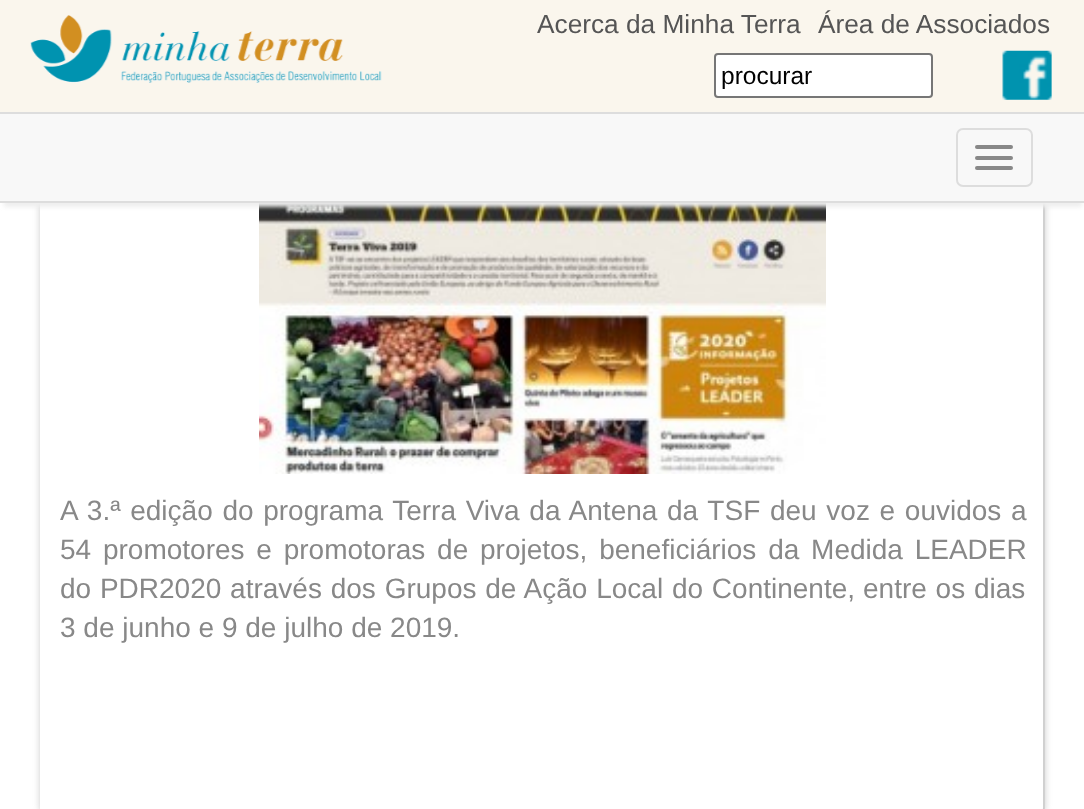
<svg xmlns="http://www.w3.org/2000/svg" width="1084" height="809" viewBox="0 0 1084 809">
  <rect width="100%" height="100%" fill="rgb(255,255,255)"/>
  <rect x="40" y="68" width="1005" height="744" rx="4" fill="rgb(204,204,204)" filter="blur(3.5px)"/>
  <rect x="40" y="203" width="1005" height="606" fill="rgb(255,255,255)"/>
  <path d="M1043 70L1044 72V808.5L1043 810.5L1041 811H44L42 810.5" fill="none" stroke="rgb(204,204,204)" stroke-width="1.8"/>
  <rect x="0" y="0" width="1084" height="112" fill="rgb(250,246,237)"/>
  <image x="30" y="15" width="352" height="68" href="pic1.png"/>
  <g font-family="Liberation Sans" font-size="26.25" fill="rgb(85,85,85)">
    <text x="537" y="33">Acerca da Minha Terra</text>
    <text x="818" y="33">Área de Associados</text>
  </g>
  <rect x="715" y="54" width="217" height="43" rx="3" fill="rgb(255,255,255)" stroke="rgb(118,118,118)" stroke-width="2"/>
  <text x="721" y="84" font-family="Liberation Sans" font-size="24.5" fill="rgb(0,0,0)">procurar</text>
  <image x="1002" y="50" width="50" height="50" href="pic2.png"/>
  <image x="259" y="203" width="567" height="271" href="pic3.png"/>
  <rect x="4" y="123" width="1078" height="84" fill="rgb(238,238,238)" filter="blur(2px)"/>
  <rect x="0" y="114" width="1084" height="87" fill="rgb(248,248,248)"/>
  <rect x="0" y="112" width="1084" height="2" fill="rgb(221,221,221)"/>
  <rect x="0" y="201" width="1084" height="2" fill="rgb(221,221,221)"/>
  <rect x="957" y="129" width="75" height="57" rx="6" fill="none" stroke="rgb(221,221,221)" stroke-width="2"/>
  <rect x="975" y="145" width="38" height="4" rx="2" fill="rgb(136,136,136)"/>
  <rect x="975" y="156" width="38" height="4" rx="2" fill="rgb(136,136,136)"/>
  <rect x="975" y="166" width="38" height="4" rx="2" fill="rgb(136,136,136)"/>
  <g font-family="Liberation Sans" font-size="28" fill="rgb(136,136,136)">
    <text>
      <tspan x="60" y="520" word-spacing="1.9">A 3.ª edição do programa Terra Viva da Antena da TSF deu voz e ouvidos a</tspan>
      <tspan x="60" y="559" word-spacing="4">54 promotores e promotoras de projetos, beneficiários da Medida LEADER</tspan>
      <tspan x="60" y="598" word-spacing="1">do PDR2020 através dos Grupos de Ação Local do Continente,</tspan>
    </text>
    <text x="863" y="598" word-spacing="1">entre os dias</text>
    <text x="60" y="637">3 de junho e 9 de julho de 2019.</text>
  </g>
</svg>
